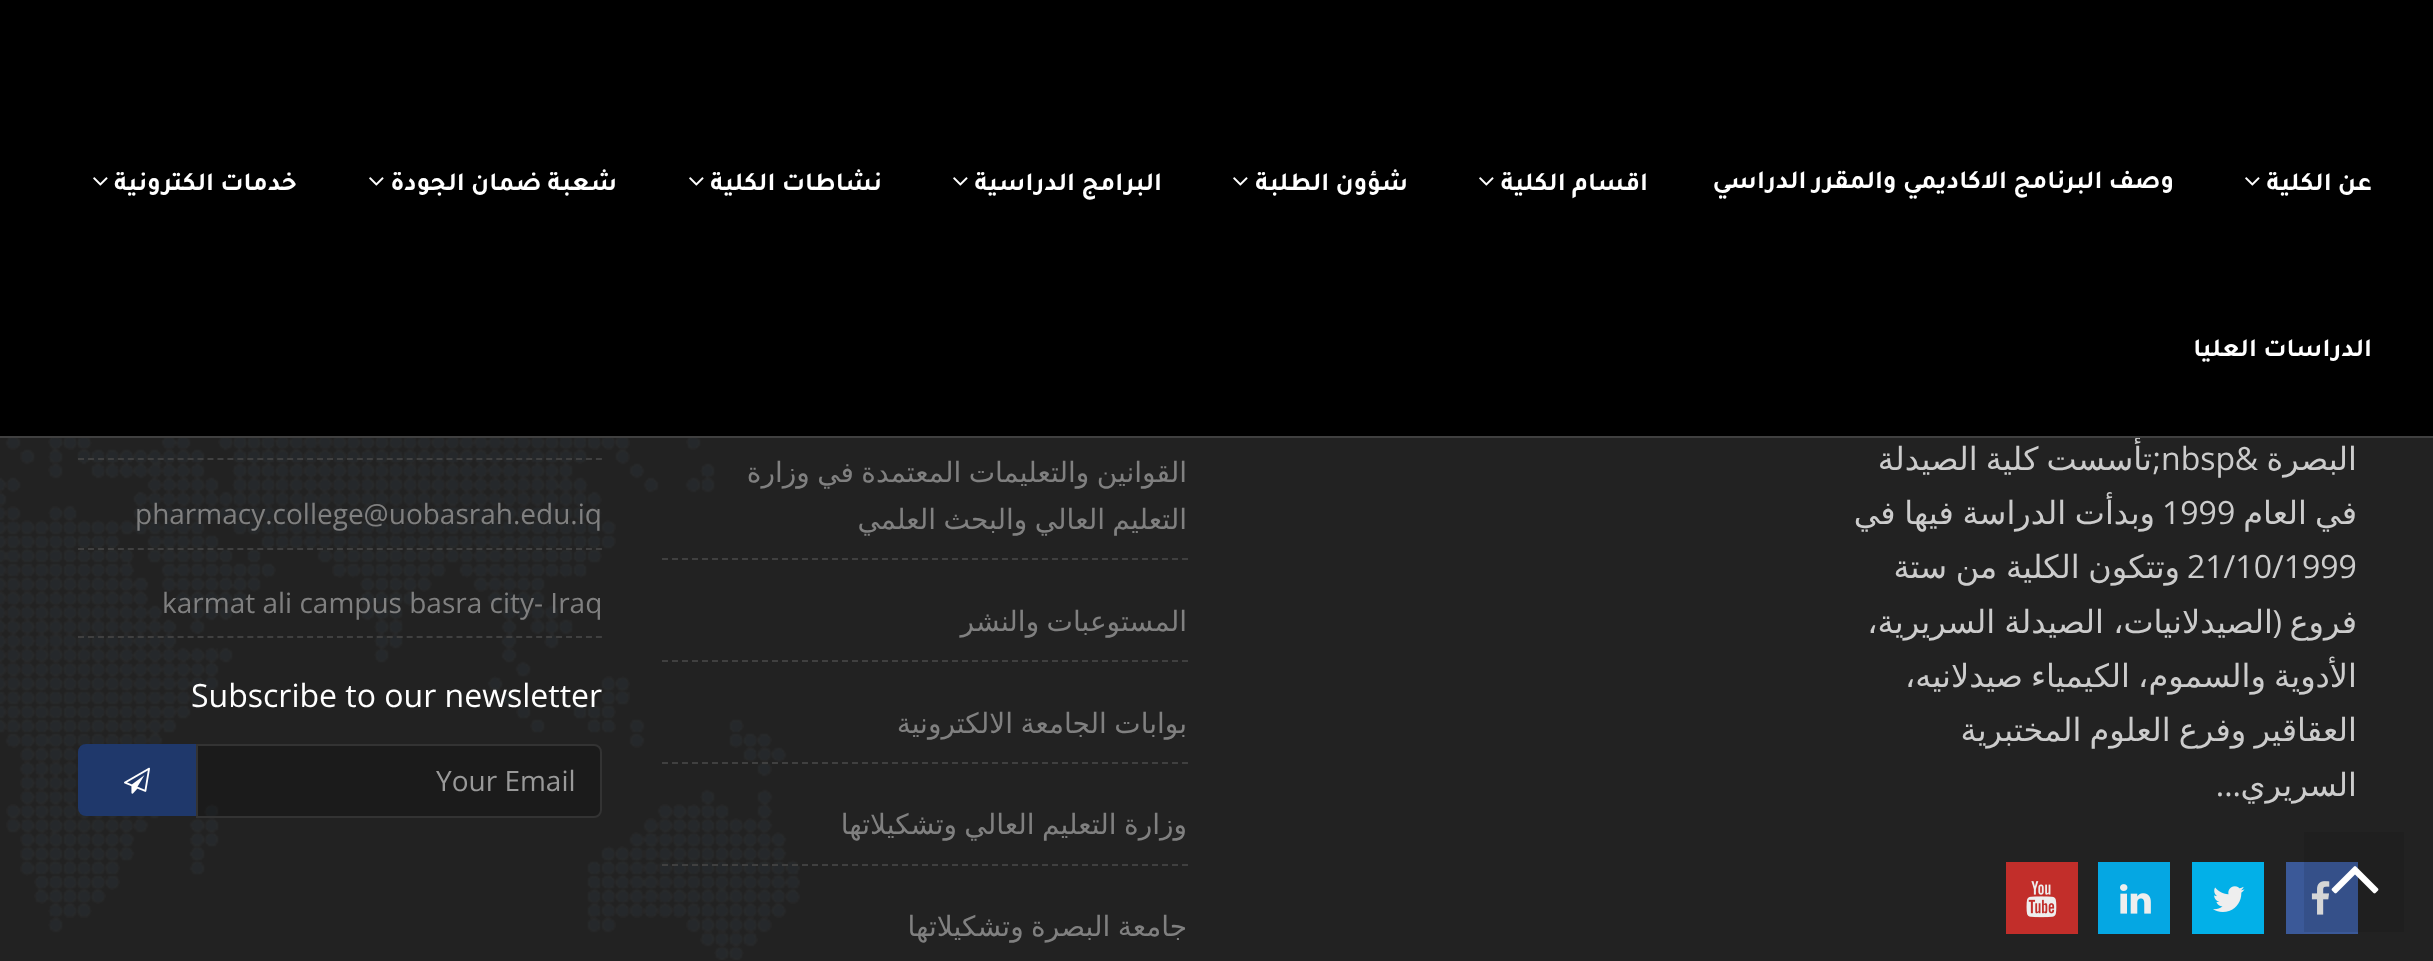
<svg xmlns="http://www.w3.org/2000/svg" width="2433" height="961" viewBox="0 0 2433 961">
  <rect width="100%" height="100%" fill="rgb(34,34,34)"/>
  <rect x="0" y="0" width="2433" height="436" fill="rgb(0,0,0)"/>
  <text x="2152" y="470" word-spacing="-2" font-family="DejaVu Sans" font-size="32" direction="rtl" fill="rgb(204,204,204)">تأسست كلية الصيدلة</text>
  <rect x="0" y="436" width="2433" height="2" fill="rgb(64,64,64)"/>
  <text x="2372" y="190" font-family="Tajawal" font-size="26" font-weight="bold" direction="rtl" fill="rgb(255,255,255)">عن الكلية</text>
  <image x="2245" y="177" width="15" height="9" href="pic1.png"/>
  <g font-family="Tajawal" font-size="26" font-weight="bold" direction="rtl" fill="rgb(255,255,255)">
    <text x="2174" y="188">وصف البرنامج الاكاديمي والمقرر الدراسي</text>
    <text x="1648" y="190">اقسام الكلية</text>
  </g>
  <image x="1479" y="177" width="15" height="9" href="pic1.png"/>
  <text x="1408" y="190" font-family="Tajawal" font-size="26" font-weight="bold" direction="rtl" fill="rgb(255,255,255)">شؤون الطلبة</text>
  <image x="1233" y="177" width="15" height="9" href="pic1.png"/>
  <text x="1162" y="190" font-family="Tajawal" font-size="26" font-weight="bold" direction="rtl" fill="rgb(255,255,255)">البرامج الدراسية</text>
  <image x="953" y="177" width="15" height="9" href="pic1.png"/>
  <text x="882" y="190" font-family="Tajawal" font-size="26" font-weight="bold" direction="rtl" fill="rgb(255,255,255)">نشاطات الكلية</text>
  <image x="689" y="177" width="15" height="9" href="pic1.png"/>
  <text x="617" y="190" font-family="Tajawal" font-size="26" font-weight="bold" direction="rtl" fill="rgb(255,255,255)">شعبة ضمان الجودة</text>
  <image x="369" y="177" width="15" height="9" href="pic1.png"/>
  <text x="297" y="190" font-family="Tajawal" font-size="26" font-weight="bold" direction="rtl" fill="rgb(255,255,255)">خدمات الكترونية</text>
  <image x="93" y="177" width="15" height="9" href="pic1.png"/>
  <text x="2372" y="356" font-family="Tajawal" font-size="26" font-weight="bold" direction="rtl" fill="rgb(255,255,255)">الدراسات العليا</text>
  <rect x="2304" y="832" width="100" height="100" fill="rgb(31,31,31)"/>
  <image x="0" y="438" width="800" height="522" href="pic2.png"/>
  <text x="2357" y="470" font-family="DejaVu Sans" font-size="32" direction="rtl" fill="rgb(204,204,204)">البصرة</text>
  <text x="2258" y="470" font-family="Open Sans" font-size="32" direction="rtl" fill="rgb(204,204,204)">&amp;</text>
  <text x="2161" y="470" font-family="Open Sans" font-size="32" fill="rgb(204,204,204)">nbsp</text>
  <text x="2161" y="470" font-family="Open Sans" font-size="32" direction="rtl" fill="rgb(204,204,204)">;</text>
  <text x="2357" y="524" word-spacing="-2" font-family="DejaVu Sans" font-size="32" direction="rtl" fill="rgb(204,204,204)">في العام</text>
  <text x="2162" y="524" font-family="Open Sans" font-size="32" fill="rgb(204,204,204)">1999</text>
  <text x="2155" y="524" word-spacing="-1.5" font-family="DejaVu Sans" font-size="32" direction="rtl" fill="rgb(204,204,204)">وبدأت الدراسة فيها في</text>
  <text x="2187" y="578" font-family="Open Sans" font-size="32" fill="rgb(204,204,204)">21/10/1999</text>
  <g font-family="DejaVu Sans" font-size="32" direction="rtl" fill="rgb(204,204,204)">
    <text x="2180" y="578" word-spacing="-1.5">وتتكون الكلية من ستة</text>
    <text x="2357" y="633">فروع</text>
  </g>
  <text x="2282" y="633" font-family="Open Sans" font-size="32" direction="rtl" fill="rgb(204,204,204)">(</text>
  <g font-family="DejaVu Sans" font-size="32" direction="rtl" fill="rgb(204,204,204)">
    <text x="2273" y="633" word-spacing="-1">الصيدلانيات، الصيدلة السريرية،</text>
    <text>
      <tspan x="2357" y="687" word-spacing="-2">الأدوية والسموم، الكيمياء صيدلانيه،</tspan>
      <tspan x="2357" y="741" word-spacing="-2">العقاقير وفرع العلوم المختبرية</tspan>
      <tspan x="2357" y="796">السريري</tspan>
    </text>
  </g>
  <text x="2241" y="796" font-family="Open Sans" font-size="32" direction="rtl" fill="rgb(204,204,204)">...</text>
  <rect x="2286" y="862" width="72" height="72" fill="rgb(59,89,152)"/>
  <rect x="2304" y="862" width="54" height="70" fill="rgb(53,80,137)"/>
  <image x="2311" y="881" width="19" height="34" href="pic3.png"/>
  <rect x="2192" y="862" width="72" height="72" fill="rgb(2,176,232)"/>
  <image x="2213" y="886" width="32" height="26" href="pic4.png"/>
  <rect x="2098" y="862" width="72" height="72" fill="rgb(5,167,227)"/>
  <image x="2120" y="884" width="31" height="30" href="pic5.png"/>
  <rect x="2006" y="862" width="72" height="72" fill="rgb(194,46,42)"/>
  <image x="2026" y="881" width="31" height="37" href="pic6.png"/>
  <path d="M662 559H1188" fill="none" stroke="rgb(64,64,64)" stroke-width="2" stroke-dasharray="6 4"/>
  <g font-family="DejaVu Sans" font-size="28" direction="rtl" fill="rgb(128,128,128)">
    <text>
      <tspan x="1187" y="482" word-spacing="-1.5">القوانين والتعليمات المعتمدة في وزارة</tspan>
      <tspan x="1187" y="529" word-spacing="-1.5">التعليم العالي والبحث العلمي</tspan>
    </text>
  </g>
  <path d="M662 661H1188" fill="none" stroke="rgb(64,64,64)" stroke-width="2" stroke-dasharray="6 4"/>
  <text x="1187" y="631" word-spacing="-1.5" font-family="DejaVu Sans" font-size="28" direction="rtl" fill="rgb(128,128,128)">المستوعبات والنشر</text>
  <path d="M662 763H1188" fill="none" stroke="rgb(64,64,64)" stroke-width="2" stroke-dasharray="6 4"/>
  <text x="1187" y="733" word-spacing="-1.5" font-family="DejaVu Sans" font-size="28" direction="rtl" fill="rgb(128,128,128)">بوابات الجامعة الالكترونية</text>
  <path d="M662 865H1188" fill="none" stroke="rgb(64,64,64)" stroke-width="2" stroke-dasharray="6 4"/>
  <g font-family="DejaVu Sans" font-size="28" direction="rtl" fill="rgb(128,128,128)">
    <text x="1187" y="834" word-spacing="-1.5">وزارة التعليم العالي وتشكيلاتها</text>
    <text x="1187" y="936" word-spacing="-1.5">جامعة البصرة وتشكيلاتها</text>
  </g>
  <path d="M78 459H602" fill="none" stroke="rgb(64,64,64)" stroke-width="2" stroke-dasharray="6 3.96"/>
  <path d="M78 549H602" fill="none" stroke="rgb(64,64,64)" stroke-width="2" stroke-dasharray="6 3.96"/>
  <text x="135" y="524" font-family="Open Sans" font-size="28" fill="rgb(128,128,128)">pharmacy.college@uobasrah.edu.iq</text>
  <path d="M78 637H602" fill="none" stroke="rgb(64,64,64)" stroke-width="2" stroke-dasharray="6 3.96"/>
  <text x="162" y="613" font-family="Open Sans" font-size="28" fill="rgb(128,128,128)">karmat ali campus basra city- Iraq</text>
  <text x="191" y="707" font-family="Open Sans" font-size="32" fill="rgb(255,255,255)">Subscribe to our newsletter</text>
  <path d="M197 745H594C598 745 601 748 601 752V810C601 814 598 817 594 817H197Z" fill="rgba(0,0,0,0.2)" stroke="rgb(51,51,51)" stroke-width="2"/>
  <text x="436" y="791" font-family="Open Sans" font-size="28" fill="rgb(153,153,153)">Your Email</text>
  <path d="M86 745H195V815H86C82 815 79 812 79 808V752C79 748 82 745 86 745Z" fill="rgb(31,56,107)" stroke="rgb(31,56,107)" stroke-width="2"/>
  <image x="124" y="767" width="26" height="27" href="pic7.png"/>
  <image x="2331" y="866" width="48" height="28" href="pic8.png"/>
</svg>
